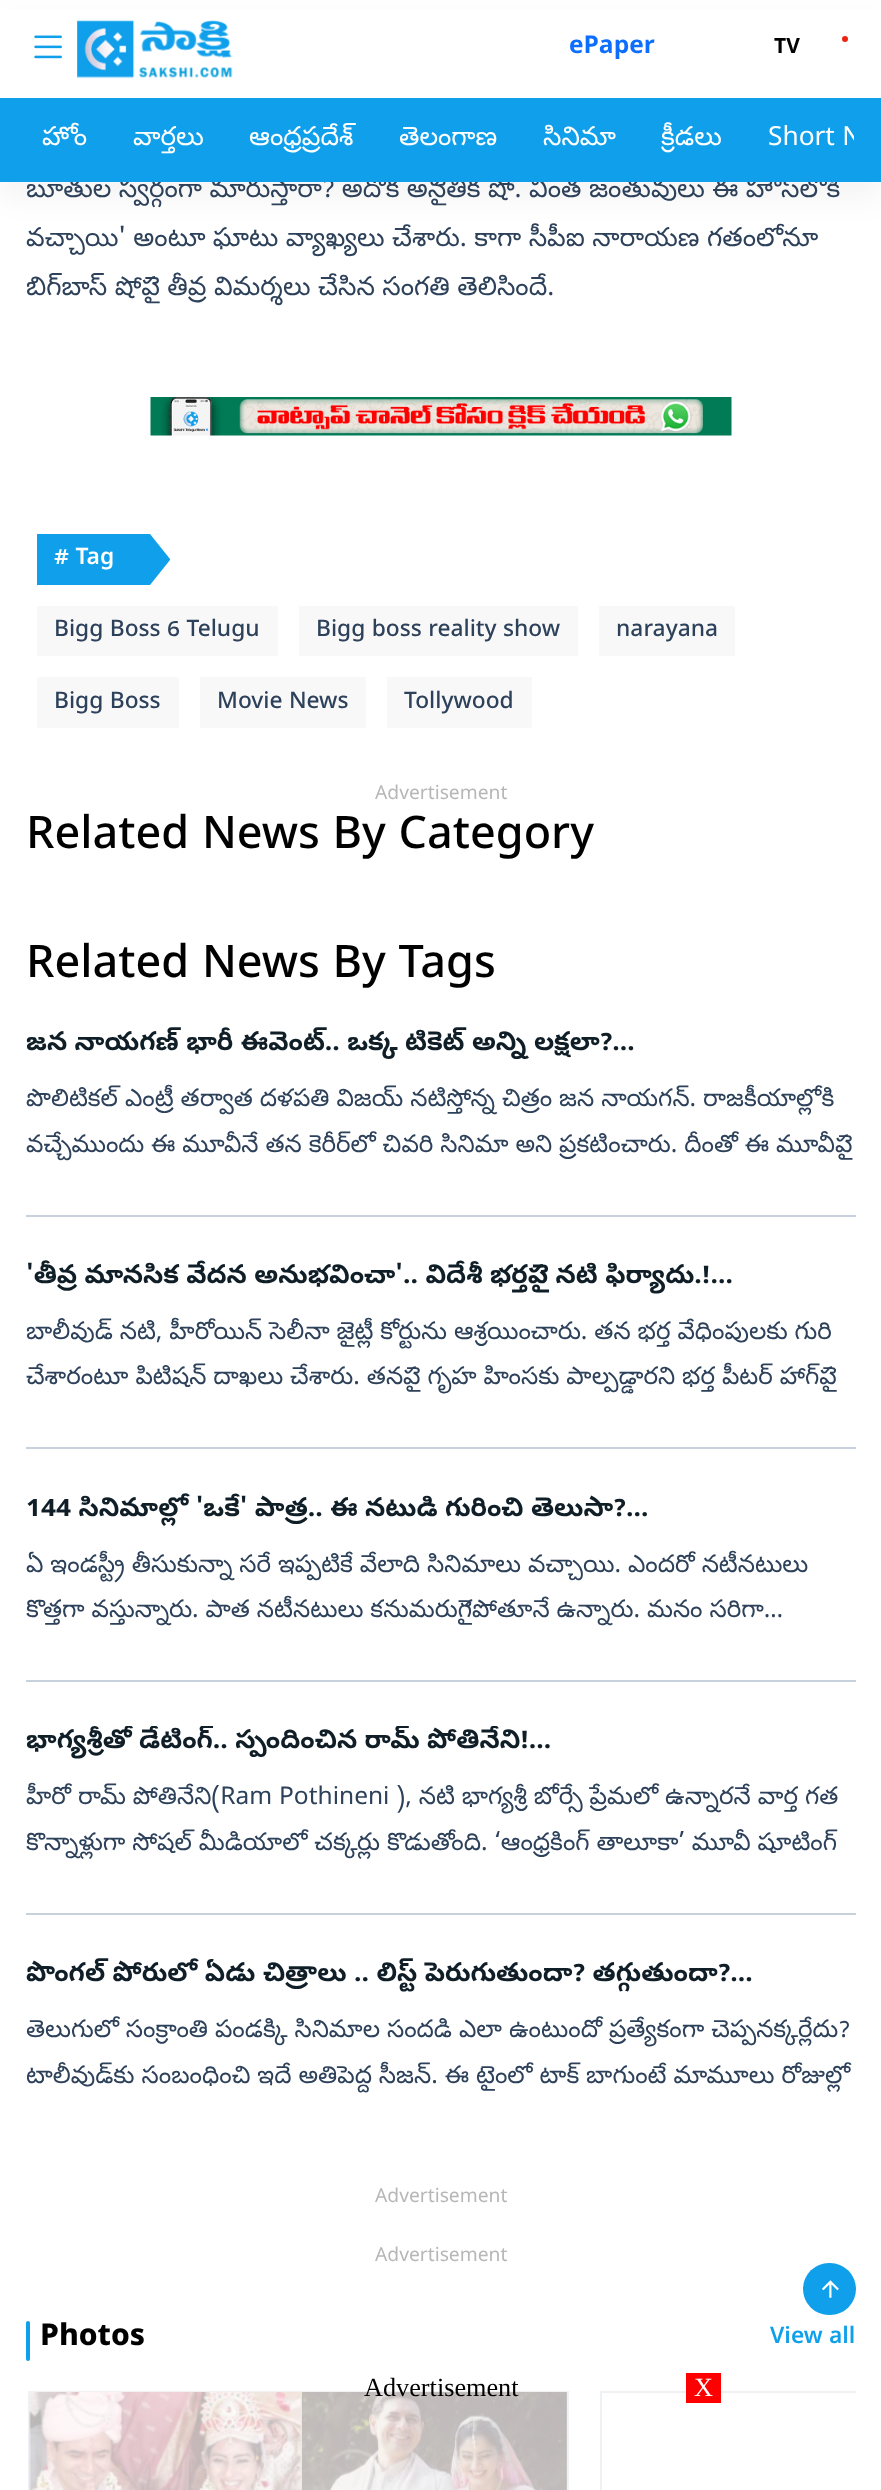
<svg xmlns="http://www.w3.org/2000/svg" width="881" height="2490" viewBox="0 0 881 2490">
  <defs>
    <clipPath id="clip1"><rect x="28" y="98" width="826" height="84"/></clipPath>
    <clipPath id="clip2"><rect x="26" y="1726" width="830" height="143"/></clipPath>
    <clipPath id="clip3"><rect x="26" y="2391" width="830" height="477"/></clipPath>
  </defs>
  <rect width="100%" height="100%" fill="rgb(255,255,255)"/>
  <rect x="0" y="18" width="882" height="182" fill="rgba(0,0,0,0.04)" filter="blur(13px)"/>
  <rect x="0" y="9" width="881" height="89" fill="rgb(255,255,255)"/>
  <image x="34" y="35" width="28" height="24" href="pic1.png"/>
  <image x="77" y="20" width="156" height="59" href="pic2.png"/>
  <text x="569" y="53" font-family="Noto Sans Telugu" font-size="24.5" font-weight="bold" fill="rgb(13,110,253)">ePaper</text>
  <text x="774" y="53" font-family="Noto Sans Telugu" font-size="21" font-weight="bold" fill="rgb(0,0,0)">TV</text>
  <circle cx="845" cy="39" r="5" fill="rgb(236,35,17)" stroke="rgb(255,255,255)" stroke-width="4"/>
  <text x="26" y="197" font-family="Noto Sans Telugu" font-size="26.25" fill="rgb(45,65,90)">బూతుల స్వర్గంగా మారుస్తారా? అదొక అనైతిక షో. వింత జంతువులు ఈ హౌస్‌లోకి</text>
  <rect x="0" y="98" width="881" height="84" fill="rgb(16,160,235)"/>
  <g font-family="Noto Sans Telugu" font-size="26.25" fill="rgb(255,255,255)">
    <text x="42" y="145">హోం</text>
    <text x="133" y="145">వార్తలు</text>
    <text x="249" y="145">ఆంధ్రప్రదేశ్</text>
    <text x="399" y="145">తెలంగాణ</text>
    <text x="543" y="145">సినిమా</text>
    <text x="661" y="145">క్రీడలు</text>
  </g>
  <g clip-path="url(#clip1)">
    <text x="768" y="145" font-family="Noto Sans Telugu" font-size="26.25" fill="rgb(255,255,255)">Short N</text>
  </g>
  <g font-family="Noto Sans Telugu" font-size="26.25" fill="rgb(45,65,90)">
    <text>
      <tspan x="26" y="246">వచ్చాయి' అంటూ ఘాటు వ్యాఖ్యలు చేశారు. కాగా సీపీఐ నారాయణ గతంలోనూ</tspan>
      <tspan x="26" y="295">బిగ్‌బాస్‌ షోపై తీవ్ర విమర్శలు చేసిన సంగతి తెలిసిందే.</tspan>
    </text>
  </g>
  <image x="150" y="397" width="582" height="39" href="pic3.png"/>
  <path d="M150 585H37V534H150L170 559V560Z" fill="rgb(16,160,235)"/>
  <text x="54" y="564" font-family="Noto Sans Telugu" font-size="22.75" font-weight="600" fill="rgb(255,255,255)"># Tag</text>
  <rect x="37" y="606" width="241" height="50" fill="rgb(248,248,248)"/>
  <text x="54" y="636" font-family="Noto Sans Telugu" font-size="22.75" font-weight="500" fill="rgb(45,65,90)">Bigg Boss 6 Telugu</text>
  <rect x="299" y="606" width="279" height="50" fill="rgb(248,248,248)"/>
  <text x="316" y="636" font-family="Noto Sans Telugu" font-size="22.75" font-weight="500" fill="rgb(45,65,90)">Bigg boss reality show</text>
  <rect x="599" y="606" width="136" height="50" fill="rgb(248,248,248)"/>
  <text x="616" y="636" font-family="Noto Sans Telugu" font-size="22.75" font-weight="500" fill="rgb(45,65,90)">narayana</text>
  <rect x="37" y="677" width="142" height="51" fill="rgb(248,248,248)"/>
  <text x="54" y="708" font-family="Noto Sans Telugu" font-size="22.75" font-weight="500" fill="rgb(45,65,90)">Bigg Boss</text>
  <rect x="200" y="677" width="166" height="51" fill="rgb(248,248,248)"/>
  <text x="217" y="708" font-family="Noto Sans Telugu" font-size="22.75" font-weight="500" fill="rgb(45,65,90)">Movie News</text>
  <rect x="387" y="677" width="145" height="51" fill="rgb(248,248,248)"/>
  <text x="404" y="708" font-family="Noto Sans Telugu" font-size="22.75" font-weight="500" fill="rgb(45,65,90)">Tollywood</text>
  <text x="375" y="799" font-family="Noto Sans Telugu" font-size="19.25" fill="rgb(183,183,183)">Advertisement</text>
  <g font-family="Noto Sans Telugu" font-size="45" font-weight="500" fill="rgb(0,0,0)">
    <text x="26" y="848">Related News By Category</text>
    <text x="26" y="977">Related News By Tags</text>
  </g>
  <rect x="26" y="1215" width="830" height="2" fill="rgb(200,210,220)"/>
  <text x="26" y="1050" font-family="Noto Sans Telugu" font-size="26.25" font-weight="bold" fill="rgb(16,30,39)">జన నాయగణ్ భారీ ఈవెంట్‌.. ఒక్క టికెట్ అన్ని లక్షలా?…</text>
  <g font-family="Noto Sans Telugu" font-size="24.5" fill="rgb(45,65,90)">
    <text>
      <tspan x="26" y="1106">పొలిటికల్ ఎంట్రీ తర్వాత దళపతి విజయ్ నటిస్తోన్న చిత్రం జన నాయగన్. రాజకీయాల్లోకి</tspan>
      <tspan x="26" y="1152">వచ్చేముందు ఈ మూవీనే తన కెరీర్‌లో చివరి సినిమా అని ప్రకటించారు. దీంతో ఈ మూవీపై</tspan>
    </text>
  </g>
  <rect x="26" y="1447" width="830" height="2" fill="rgb(200,210,220)"/>
  <text x="26" y="1283" font-family="Noto Sans Telugu" font-size="26.25" font-weight="bold" fill="rgb(16,30,39)">'తీవ్ర మానసిక వేదన అనుభవించా'.. విదేశీ భర్తపై నటి ఫిర్యాదు.!…</text>
  <g font-family="Noto Sans Telugu" font-size="24.5" fill="rgb(45,65,90)">
    <text>
      <tspan x="26" y="1339">బాలీవుడ్ నటి, హీరోయిన్ సెలీనా జైట్లీ కోర్టును ఆశ్రయించారు. తన భర్త వేధింపులకు గురి</tspan>
      <tspan x="26" y="1384">చేశారంటూ పిటిషన్ దాఖలు చేశారు. తనపై గృహ హింసకు పాల్పడ్డారని భర్త పీటర్ హాగ్‌పై</tspan>
    </text>
  </g>
  <rect x="26" y="1680" width="830" height="2" fill="rgb(200,210,220)"/>
  <text x="26" y="1516" font-family="Noto Sans Telugu" font-size="26.25" font-weight="bold" fill="rgb(16,30,39)">144 సినిమాల్లో 'ఒకే' పాత్ర.. ఈ నటుడి గురించి తెలుసా?…</text>
  <g font-family="Noto Sans Telugu" font-size="24.5" fill="rgb(45,65,90)">
    <text>
      <tspan x="26" y="1572">ఏ ఇండస్ట్రీ తీసుకున్నా సరే ఇప్పటికే వేలాది సినిమాలు వచ్చాయి. ఎందరో నటీనటులు</tspan>
      <tspan x="26" y="1617">కొత్తగా వస్తున్నారు. పాత నటీనటులు కనుమరుగైపోతూనే ఉన్నారు. మనం సరిగా…</tspan>
    </text>
  </g>
  <rect x="26" y="1913" width="830" height="2" fill="rgb(200,210,220)"/>
  <g clip-path="url(#clip2)">
    <text x="26" y="1748" font-family="Noto Sans Telugu" font-size="26.25" font-weight="bold" fill="rgb(16,30,39)">భాగ్యశ్రీతో డేటింగ్‌.. స్పందించిన రామ్‌ పోతినేని!…</text>
  </g>
  <g font-family="Noto Sans Telugu" font-size="24.5" fill="rgb(45,65,90)">
    <text>
      <tspan x="26" y="1804">హీరో రామ్‌ పోతినేని(Ram Pothineni ), నటి భాగ్యశ్రీ బోర్సే ప్రేమలో ఉన్నారనే వార్త గత</tspan>
      <tspan x="26" y="1850">కొన్నాళ్లుగా సోషల్‌ మీడియాలో చక్కర్లు కొడుతోంది. ‘ఆంధ్రకింగ్ తాలూకా’ మూవీ షూటింగ్</tspan>
    </text>
  </g>
  <text x="26" y="1981" font-family="Noto Sans Telugu" font-size="26.25" font-weight="bold" fill="rgb(16,30,39)">పొంగల్‌ పోరులో ఏడు చిత్రాలు .. లిస్ట్‌ పెరుగుతుందా? తగ్గుతుందా?…</text>
  <g font-family="Noto Sans Telugu" font-size="24.5" fill="rgb(45,65,90)">
    <text>
      <tspan x="26" y="2037">తెలుగులో సంక్రాంతి పండ‌క్కి సినిమాల సంద‌డి ఎలా ఉంటుందో ప్రత్యేకంగా చెప్పనక్కర్లేదు?</tspan>
      <tspan x="26" y="2083">టాలీవుడ్‌కు సంబంధించి ఇదే అతిపెద్ద సీజ‌న్. ఈ టైంలో టాక్ బాగుంటే మామూలు రోజుల్లో</tspan>
    </text>
  </g>
  <g font-family="Noto Sans Telugu" font-size="19.25" fill="rgb(183,183,183)">
    <text x="375" y="2202">Advertisement</text>
    <text x="375" y="2261">Advertisement</text>
  </g>
  <rect x="26" y="2321" width="4" height="40" rx="2" fill="rgb(16,160,235)"/>
  <text x="40" y="2345" font-family="Noto Sans Telugu" font-size="30" font-weight="800" fill="rgb(0,0,0)">Photos</text>
  <text x="770" y="2343" font-family="Noto Sans Telugu" font-size="22.75" font-weight="600" fill="rgb(16,160,235)">View all</text>
  <rect x="29" y="2392" width="539" height="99" fill="none" stroke="rgb(239,242,245)" stroke-width="2"/>
  <image x="29" y="2392" width="538" height="98" href="pic4.png"/>
  <g clip-path="url(#clip3)">
    <rect x="601" y="2392" width="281" height="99" fill="none" stroke="rgb(239,242,245)" stroke-width="2"/>
  </g>
  <rect x="803" y="2263" width="53" height="52" rx="26" fill="rgb(16,160,235)"/>
  <image x="822" y="2280" width="17" height="18" href="pic5.png"/>
  <text x="364" y="2396" font-family="Liberation Serif" font-size="26.25" fill="rgb(0,0,0)">Advertisement</text>
  <rect x="686" y="2373" width="35" height="30" fill="rgb(255,0,0)"/>
  <text x="694" y="2396" font-family="Liberation Serif" font-size="26.25" fill="rgb(255,255,255)">X</text>
</svg>
